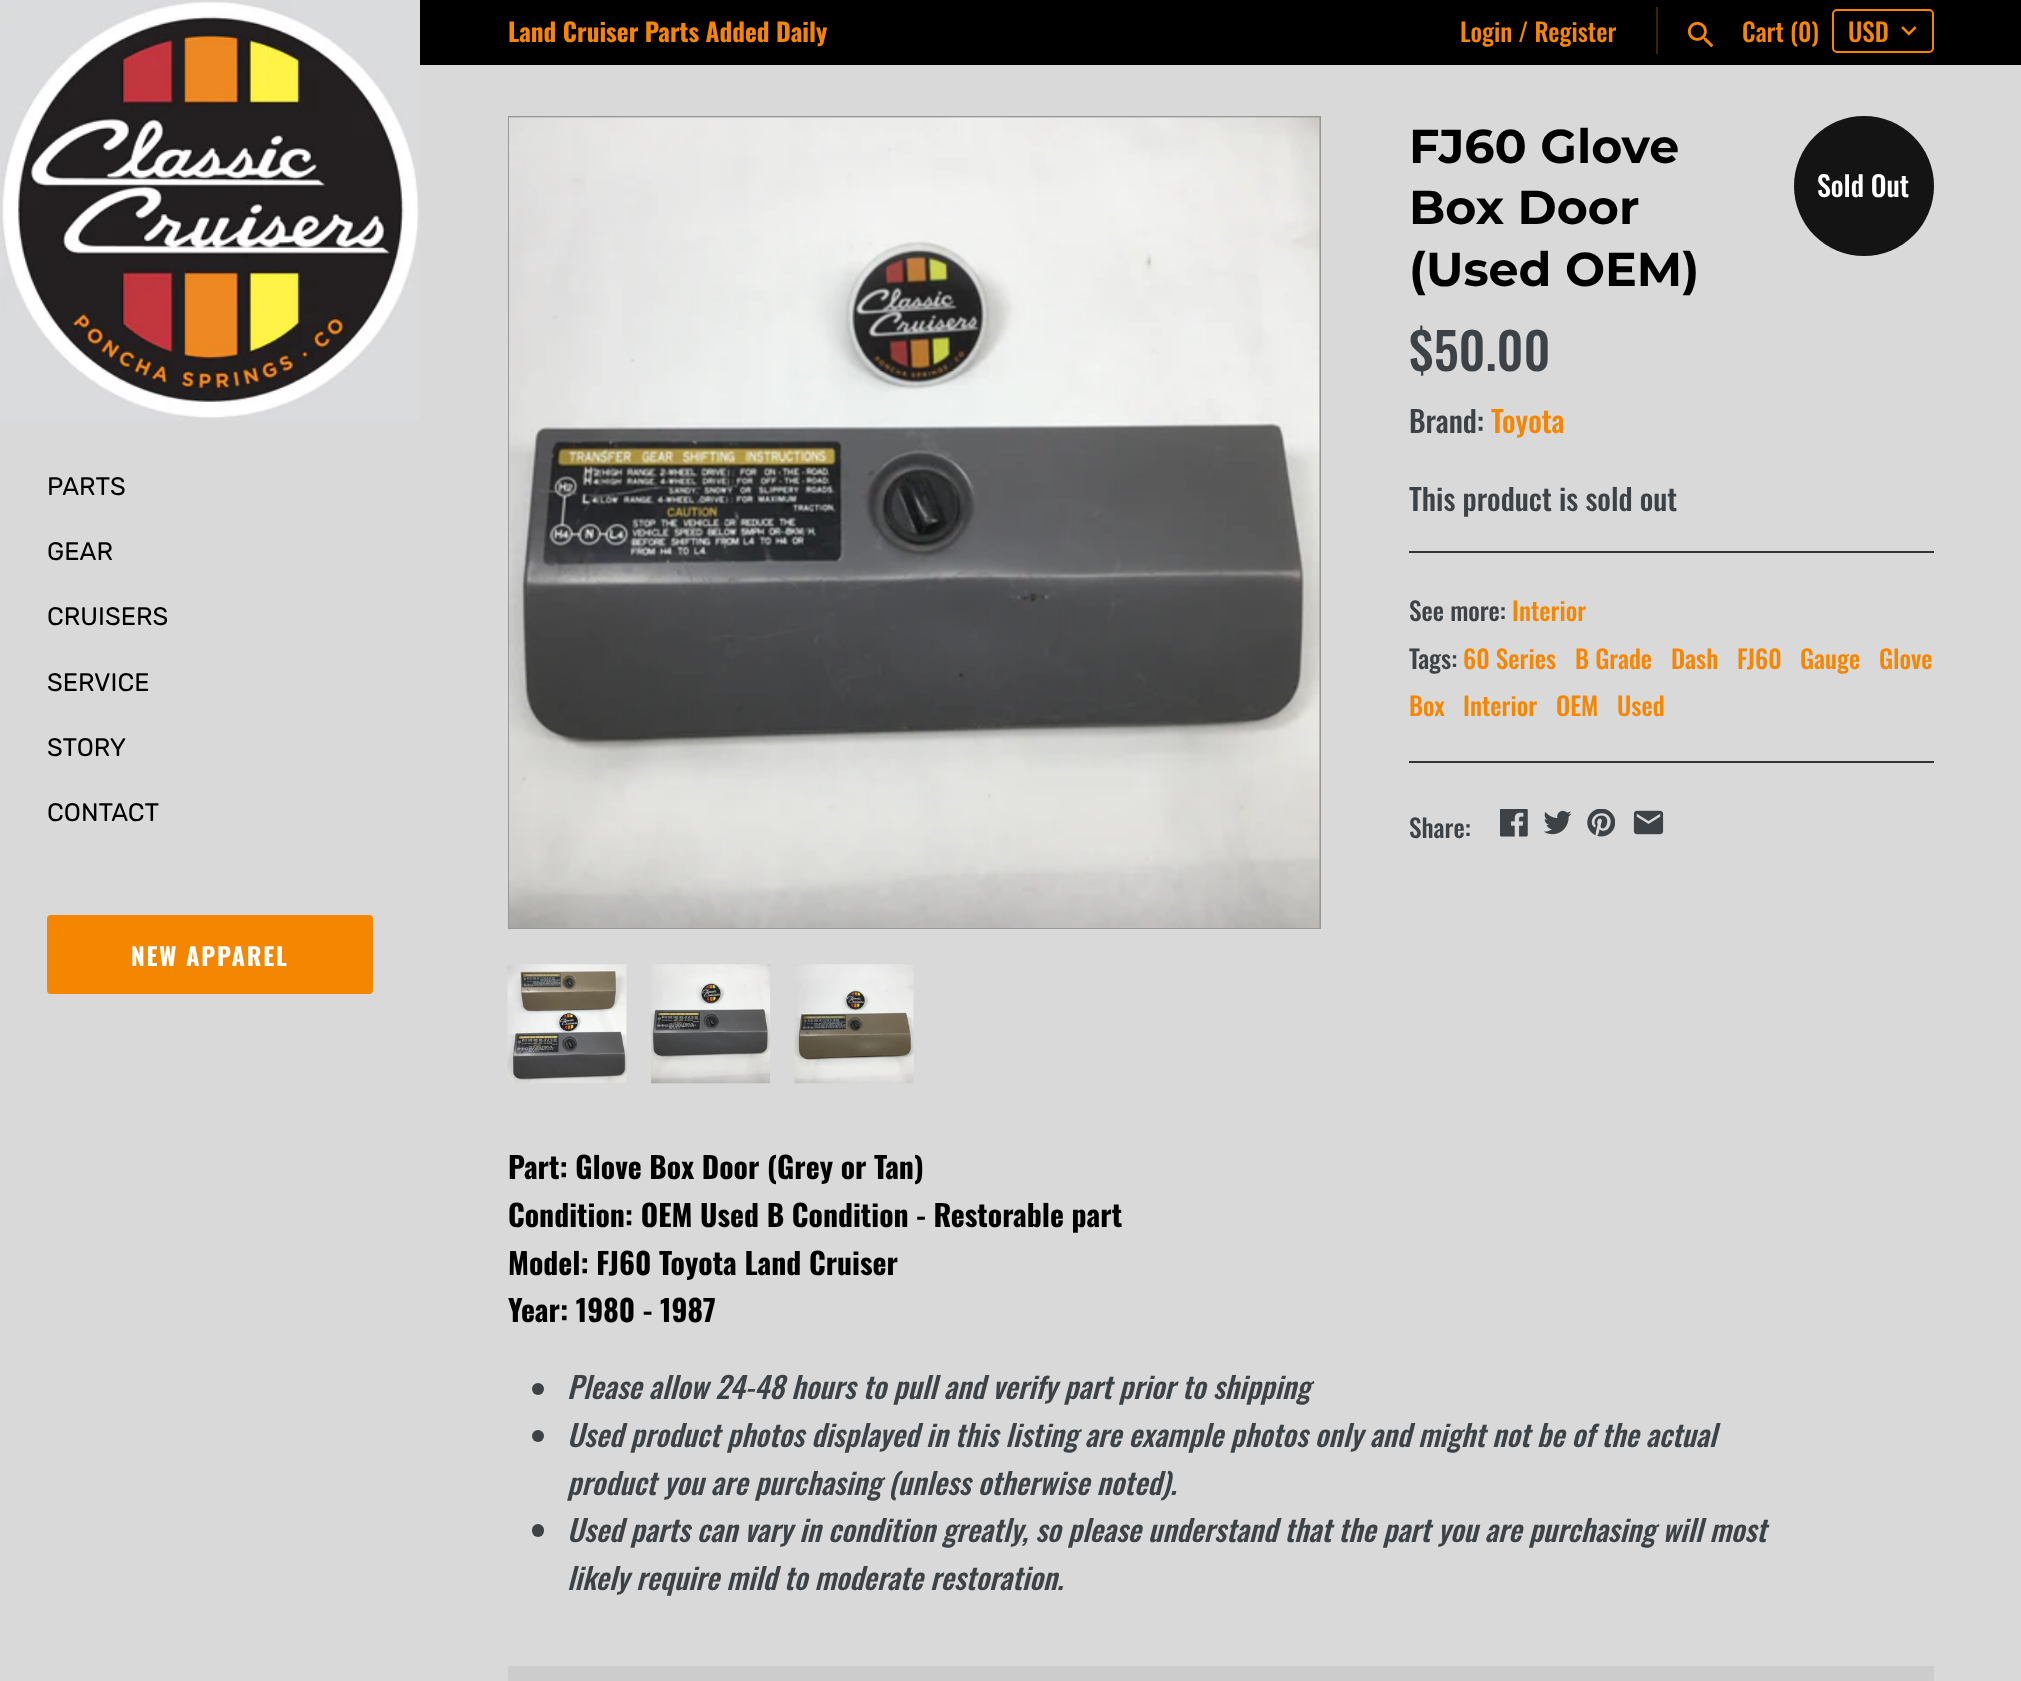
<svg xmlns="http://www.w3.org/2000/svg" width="2021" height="1681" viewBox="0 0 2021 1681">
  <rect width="100%" height="100%" fill="rgb(217,217,217)"/>
  <rect x="420" y="0" width="1601" height="65" fill="rgb(0,0,0)"/>
  <text x="508" y="42" font-family="Oswald" font-size="25.25" font-weight="bold" fill="rgb(244,134,2)">Land Cruiser Parts Added Daily</text>
  <text x="1460" y="42" font-family="Oswald" font-size="25.25" font-weight="500" fill="rgb(244,134,2)">Login / Register</text>
  <rect x="1656" y="7" width="2" height="47" fill="rgb(61,34,1)"/>
  <image x="1687" y="21" width="27" height="27" href="pic1.png"/>
  <text x="1742" y="42" font-family="Oswald" font-size="25.25" font-weight="500" fill="rgb(244,134,2)">Cart (0)</text>
  <image x="1901" y="26" width="16" height="10" href="pic2.png"/>
  <rect x="1833" y="10" width="100" height="42" rx="4" fill="none" stroke="rgb(244,134,2)" stroke-width="2"/>
  <text x="1848" y="42" font-family="Oswald" font-size="25.25" font-weight="500" fill="rgb(244,134,2)">USD</text>
  <image x="0" y="0" width="420" height="420" href="pic3.png"/>
  <g font-family="Rubik" font-size="25.25" fill="rgb(0,0,0)">
    <text x="47" y="495">PARTS</text>
    <text x="47" y="560">GEAR</text>
    <text x="47" y="625">CRUISERS</text>
    <text x="47" y="691">SERVICE</text>
    <text x="47" y="756">STORY</text>
    <text x="47" y="821">CONTACT</text>
  </g>
  <rect x="47" y="915" width="326" height="79" rx="4" fill="rgb(244,134,2)"/>
  <text x="131" y="966" font-family="Oswald" font-size="24.5" font-weight="bold" letter-spacing="1.75" fill="rgb(255,255,255)">NEW APPAREL</text>
  <rect x="509" y="117" width="811" height="811" fill="none" stroke="rgb(151,151,151)" stroke-width="2"/>
  <image x="509" y="117" width="811" height="811" href="pic4.png"/>
  <image x="507" y="964" width="120" height="119" href="pic5.png"/>
  <image x="651" y="964" width="119" height="120" href="pic6.png"/>
  <image x="794" y="964" width="120" height="120" href="pic7.png"/>
  <g font-family="Montserrat" font-size="47.5" font-weight="bold" fill="rgb(0,0,0)">
    <text>
      <tspan x="1409" y="163">FJ60 Glove</tspan>
      <tspan x="1409" y="224">Box Door</tspan>
      <tspan x="1409" y="286">(Used OEM)</tspan>
    </text>
  </g>
  <circle cx="1864" cy="186" r="70" fill="rgb(20,20,20)"/>
  <text x="1817" y="197" font-family="Oswald" font-size="28" font-weight="500" fill="rgb(255,255,255)">Sold Out</text>
  <text x="1409" y="371" font-family="Oswald" font-size="50.5" font-weight="500" fill="rgb(61,66,70)">$50.00</text>
  <text x="1409" y="433" font-family="Oswald" font-size="29.75" font-weight="500" fill="rgb(61,66,70)">Brand:</text>
  <text x="1491" y="433" font-family="Oswald" font-size="29.75" font-weight="500" fill="rgb(244,134,2)">Toyota</text>
  <text x="1409" y="511" font-family="Oswald" font-size="29.75" font-weight="500" fill="rgb(61,66,70)">This product is sold out</text>
  <rect x="1409" y="551" width="525" height="2" fill="rgb(52,52,52)"/>
  <text x="1409" y="621" font-family="Oswald" font-size="25.25" font-weight="500" fill="rgb(61,66,70)">See more:</text>
  <text x="1512" y="621" font-family="Oswald" font-size="25.25" font-weight="500" fill="rgb(244,134,2)">Interior</text>
  <text x="1409" y="669" font-family="Oswald" font-size="25.25" font-weight="500" fill="rgb(61,66,70)">Tags:</text>
  <g font-family="Oswald" font-size="25.25" font-weight="500" fill="rgb(244,134,2)">
    <text x="1463" y="669">60 Series</text>
    <text x="1575" y="669">B Grade</text>
    <text x="1671" y="669">Dash</text>
    <text x="1737" y="669">FJ60</text>
    <text x="1800" y="669">Gauge</text>
    <text x="1879" y="669">Glove</text>
    <text x="1409" y="716">Box</text>
    <text x="1463" y="716">Interior</text>
    <text x="1556" y="716">OEM</text>
    <text x="1617" y="716">Used</text>
  </g>
  <rect x="1409" y="761" width="525" height="2" fill="rgb(52,52,52)"/>
  <text x="1409" y="838" font-family="Oswald" font-size="25.25" font-weight="500" fill="rgb(61,66,70)">Share:</text>
  <image x="1500" y="809" width="28" height="28" href="pic8.png"/>
  <image x="1544" y="810" width="28" height="25" href="pic9.png"/>
  <image x="1587" y="809" width="28" height="28" href="pic10.png"/>
  <image x="1633" y="810" width="31" height="25" href="pic11.png"/>
  <g font-family="Oswald" font-size="29.75" font-weight="bold" fill="rgb(0,0,0)">
    <text>
      <tspan x="508" y="1179">Part: Glove Box Door (Grey or Tan)</tspan>
      <tspan x="508" y="1227">Condition: OEM Used B Condition - Restorable part</tspan>
      <tspan x="508" y="1275">Model: FJ60 Toyota Land Cruiser</tspan>
      <tspan x="508" y="1322">Year: 1980 - 1987</tspan>
    </text>
  </g>
  <circle cx="538" cy="1389" r="6" fill="rgb(61,66,70)"/>
  <text x="567" y="1399" font-family="Oswald" font-size="29.75" font-weight="500" font-style="italic" fill="rgb(61,66,70)">Please allow 24-48 hours to pull and verify part prior to shipping</text>
  <circle cx="538" cy="1436" r="6" fill="rgb(61,66,70)"/>
  <g font-family="Oswald" font-size="29.75" font-weight="500" font-style="italic" fill="rgb(61,66,70)">
    <text>
      <tspan x="567" y="1447">Used product photos displayed in this listing are example photos only and might not be of the actual</tspan>
      <tspan x="567" y="1495">product you are purchasing (unless otherwise noted).</tspan>
    </text>
  </g>
  <rect x="532" y="1524" width="12" height="13" rx="6" fill="rgb(61,66,70)"/>
  <g font-family="Oswald" font-size="29.75" font-weight="500" font-style="italic" fill="rgb(61,66,70)">
    <text>
      <tspan x="567" y="1542">Used parts can vary in condition greatly, so please understand that the part you are purchasing will most</tspan>
      <tspan x="567" y="1590">likely require mild to moderate restoration.</tspan>
    </text>
  </g>
  <rect x="508" y="1666" width="1426" height="15" fill="rgb(204,204,204)"/>
</svg>
